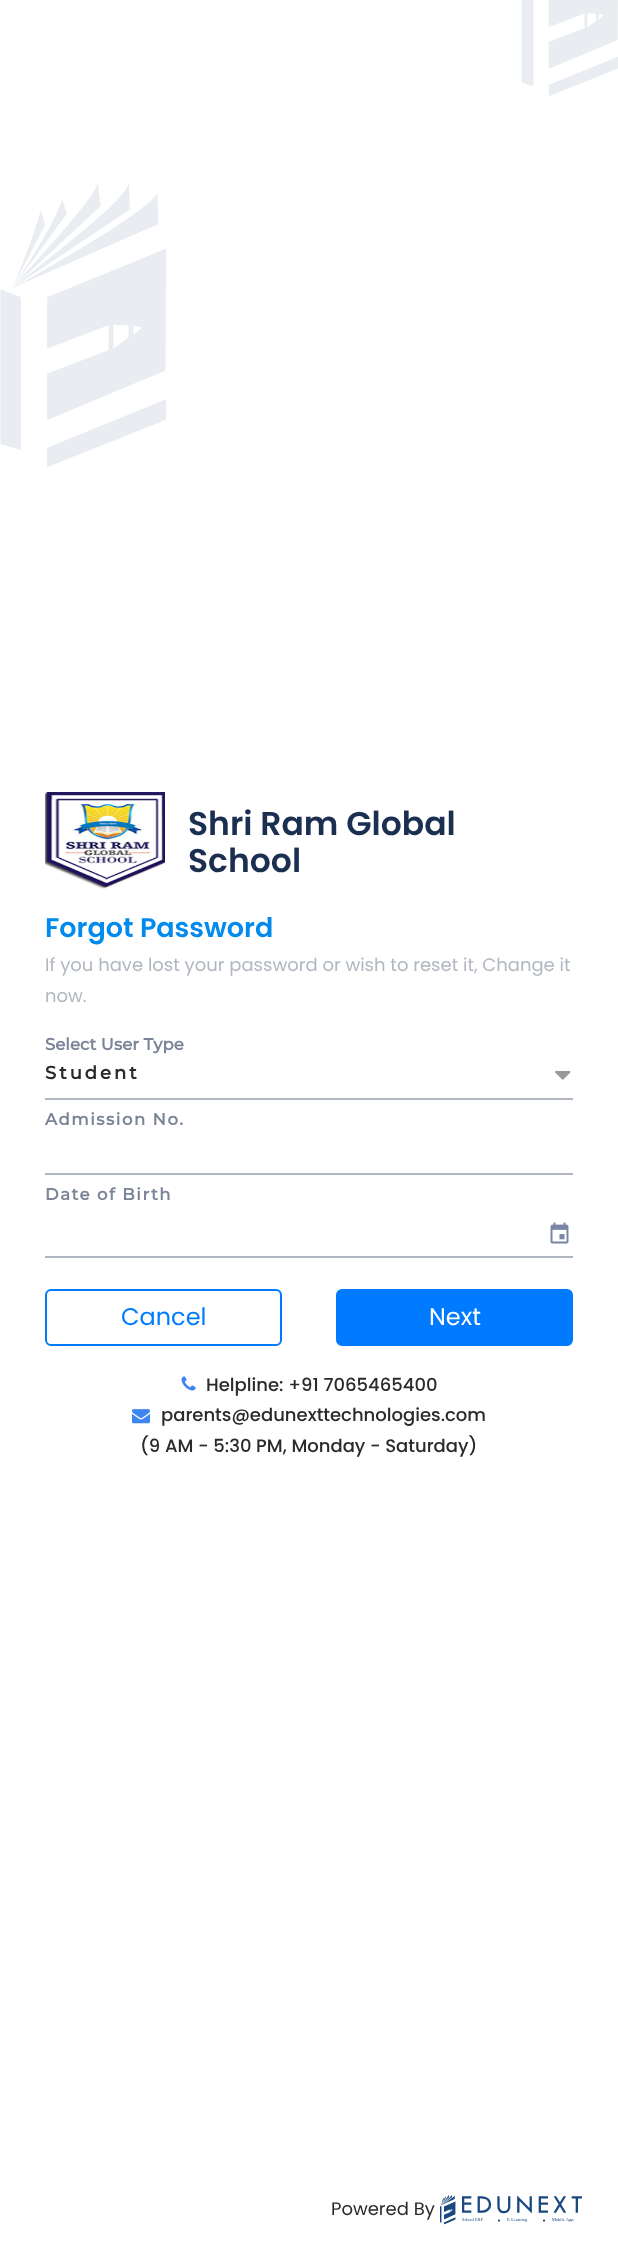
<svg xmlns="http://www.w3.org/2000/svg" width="618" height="2264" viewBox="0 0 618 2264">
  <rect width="100%" height="100%" fill="rgb(255,255,255)"/>
  <image x="0" y="0" width="618" height="467" href="pic1.png"/>
  <image x="45" y="792" width="120" height="97" href="pic2.png"/>
  <g font-family="Poppins" font-size="33" font-weight="600" fill="rgb(27,47,80)">
    <text>
      <tspan x="188" y="835">Shri Ram Global</tspan>
      <tspan x="188" y="872">School</tspan>
    </text>
  </g>
  <text x="45" y="937" font-family="Poppins" font-size="27" font-weight="600" fill="rgb(2,138,237)">Forgot Password</text>
  <g font-family="Poppins" font-size="18" fill="rgb(177,183,193)">
    <text>
      <tspan x="45" y="971">If you have lost your password or wish to reset it, Change it</tspan>
      <tspan x="45" y="1002">now.</tspan>
    </text>
  </g>
  <text x="45" y="1050" font-family="Montserrat" font-size="16.5" font-weight="bold" fill="rgb(123,133,151)">Select User Type</text>
  <rect x="45" y="1098" width="528" height="2" fill="rgb(177,183,193)"/>
  <text x="45" y="1079" font-family="Montserrat" font-size="18" font-weight="bold" letter-spacing="3" fill="rgb(42,42,42)">Student</text>
  <image x="555" y="1071" width="16" height="9" href="pic3.png"/>
  <text x="45" y="1125" font-family="Montserrat" font-size="16.5" font-weight="bold" letter-spacing="1.5" fill="rgb(123,133,151)">Admission No.</text>
  <rect x="45" y="1173" width="528" height="2" fill="rgb(177,183,193)"/>
  <text x="45" y="1200" font-family="Montserrat" font-size="16.5" font-weight="bold" letter-spacing="1.5" fill="rgb(123,133,151)">Date of Birth</text>
  <image x="550" y="1222" width="19" height="22" href="pic4.png"/>
  <rect x="45" y="1256" width="528" height="2" fill="rgb(177,183,193)"/>
  <rect x="46" y="1290" width="235" height="55" rx="5" fill="none" stroke="rgb(0,123,255)" stroke-width="2"/>
  <text x="121" y="1325" font-family="Poppins" font-size="24" fill="rgb(0,123,255)">Cancel</text>
  <rect x="337" y="1290" width="235" height="55" rx="5" fill="rgb(0,123,255)" stroke="rgb(0,123,255)" stroke-width="2"/>
  <text x="429" y="1325" font-family="Poppins" font-size="24" fill="rgb(255,255,255)">Next</text>
  <image x="181" y="1376" width="15" height="15" href="pic5.png"/>
  <text x="206" y="1391" font-family="Poppins" font-size="18" font-weight="500" fill="rgb(42,42,42)">Helpline: +91 7065465400</text>
  <image x="132" y="1409" width="18" height="15" href="pic6.png"/>
  <g font-family="Poppins" font-size="18" font-weight="500" fill="rgb(42,42,42)">
    <text x="161" y="1421">parents@edunexttechnologies.com</text>
    <text x="140" y="1452">(9 AM - 5:30 PM, Monday - Saturday)</text>
  </g>
  <text x="331" y="2215" font-family="Poppins" font-size="18" fill="rgb(42,42,42)">Powered By</text>
  <image x="440" y="2195" width="142" height="30" href="pic7.png"/>
</svg>
